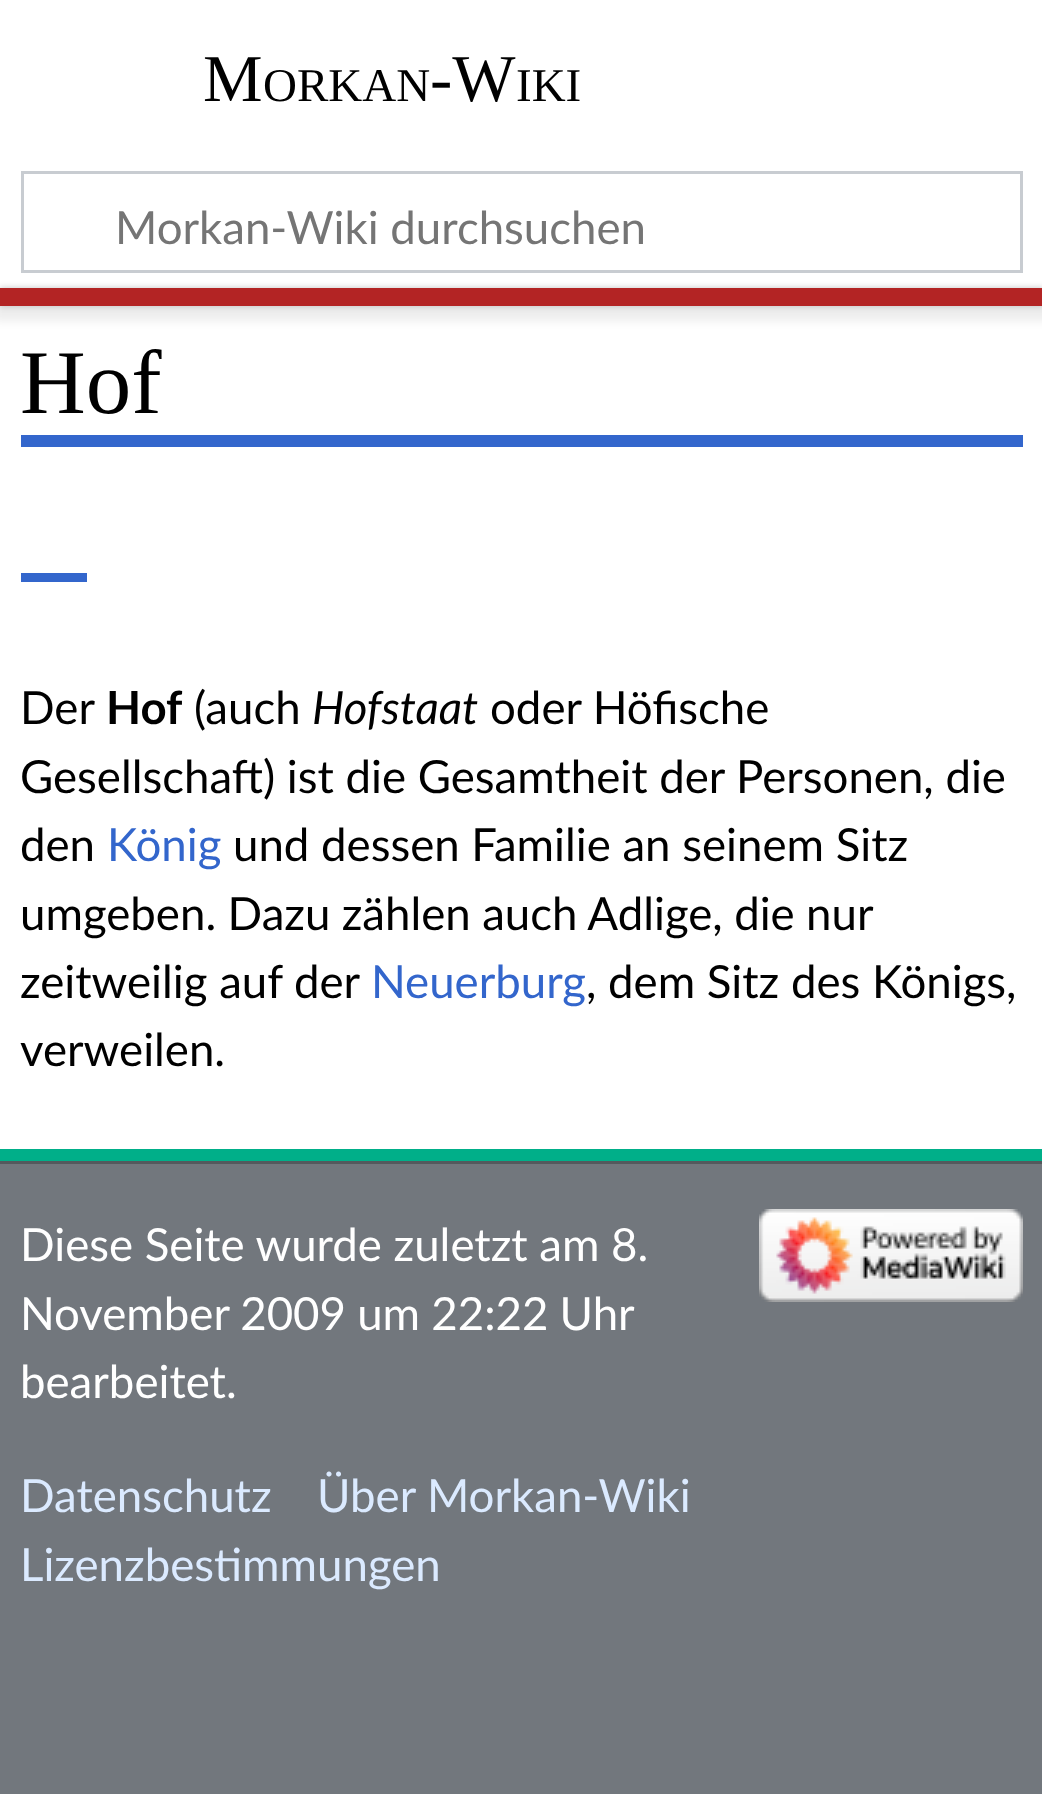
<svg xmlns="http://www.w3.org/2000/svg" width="1042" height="1794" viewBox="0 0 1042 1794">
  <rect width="100%" height="100%" fill="rgb(114,119,125)"/>
  <rect x="0" y="0" width="1042" height="288" fill="rgb(255,255,255)"/>
  <text x="203" y="101" font-family="Liberation Serif" font-size="67" fill="rgb(0,0,0)">M</text>
  <text x="263" y="101" font-family="Liberation Serif" font-size="47" fill="rgb(0,0,0)">ORKAN</text>
  <text x="430" y="101" font-family="Liberation Serif" font-size="67" fill="rgb(0,0,0)">-W</text>
  <text x="516" y="101" font-family="Liberation Serif" font-size="47" fill="rgb(0,0,0)">IKI</text>
  <rect x="22.5" y="172.5" width="999" height="99" fill="none" stroke="rgb(200,204,209)" stroke-width="3"/>
  <text x="115" y="244" font-family="Lato" font-size="45.6" fill="rgb(117,117,117)">Morkan-Wiki durchsuchen</text>
  <rect x="0" y="306" width="1042" height="843" fill="rgb(255,255,255)"/>
  <rect x="0" y="288" width="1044" height="18" fill="rgba(0,0,0,0.2)" filter="blur(3px)"/>
  <rect x="-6" y="291" width="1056" height="30" fill="rgba(0,0,0,0.07)" filter="blur(4.5px)"/>
  <rect x="0" y="288" width="1042" height="18" fill="rgb(179,36,36)"/>
  <rect x="0" y="1149" width="1042" height="12" fill="rgb(0,175,137)"/>
  <rect x="21" y="435" width="1002" height="12" fill="rgb(51,102,204)"/>
  <text x="20" y="413" font-family="Liberation Serif" font-size="91" fill="rgb(0,0,0)">Hof</text>
  <rect x="21" y="573" width="66" height="9" fill="rgb(51,102,204)"/>
  <text x="20" y="724" font-family="Lato" font-size="45.6" fill="rgb(0,0,0)">Der</text>
  <text x="106" y="724" font-family="Lato" font-size="45.6" font-weight="bold" fill="rgb(0,0,0)">Hof</text>
  <text x="194" y="724" font-family="Lato" font-size="45.6" fill="rgb(0,0,0)">(auch</text>
  <text x="312" y="724" font-family="Lato" font-size="45.6" font-style="italic" fill="rgb(0,0,0)">Hofstaat</text>
  <g font-family="Lato" font-size="45.6" fill="rgb(0,0,0)">
    <text x="490" y="724">oder Höfische</text>
    <text>
      <tspan x="20" y="793">Gesellschaft) ist die Gesamtheit der Personen, die</tspan>
      <tspan x="20" y="861">den</tspan>
    </text>
  </g>
  <text x="107" y="861" font-family="Lato" font-size="45.6" fill="rgb(51,102,204)">König</text>
  <g font-family="Lato" font-size="45.6" fill="rgb(0,0,0)">
    <text x="233" y="861">und dessen Familie an seinem Sitz</text>
    <text>
      <tspan x="20" y="930" word-spacing="-0.25">umgeben. Dazu zählen auch Adlige, die nur</tspan>
      <tspan x="20" y="998">zeitweilig auf der</tspan>
    </text>
  </g>
  <text x="371" y="998" font-family="Lato" font-size="45.6" fill="rgb(51,102,204)">Neuerburg</text>
  <g font-family="Lato" font-size="45.6" fill="rgb(0,0,0)">
    <text x="586" y="998">, dem Sitz des Königs,</text>
    <text x="20" y="1066">verweilen.</text>
  </g>
  <rect x="0" y="1161" width="1042" height="3" fill="rgb(84,89,93)"/>
  <g font-family="Lato" font-size="45.6" fill="rgb(255,255,255)">
    <text>
      <tspan x="20" y="1261">Diese Seite wurde zuletzt am 8.</tspan>
      <tspan x="20" y="1330" word-spacing="-0.5">November 2009 um 22:22 Uhr</tspan>
      <tspan x="20" y="1398">bearbeitet.</tspan>
    </text>
  </g>
  <g font-family="Lato" font-size="45.6" fill="rgb(219,234,255)">
    <text x="20" y="1512">Datenschutz</text>
    <text x="317" y="1512">Über Morkan-Wiki</text>
    <text x="20" y="1581">Lizenzbestimmungen</text>
  </g>
  <image x="759" y="1209" width="264" height="93" href="pic1.png"/>
</svg>
